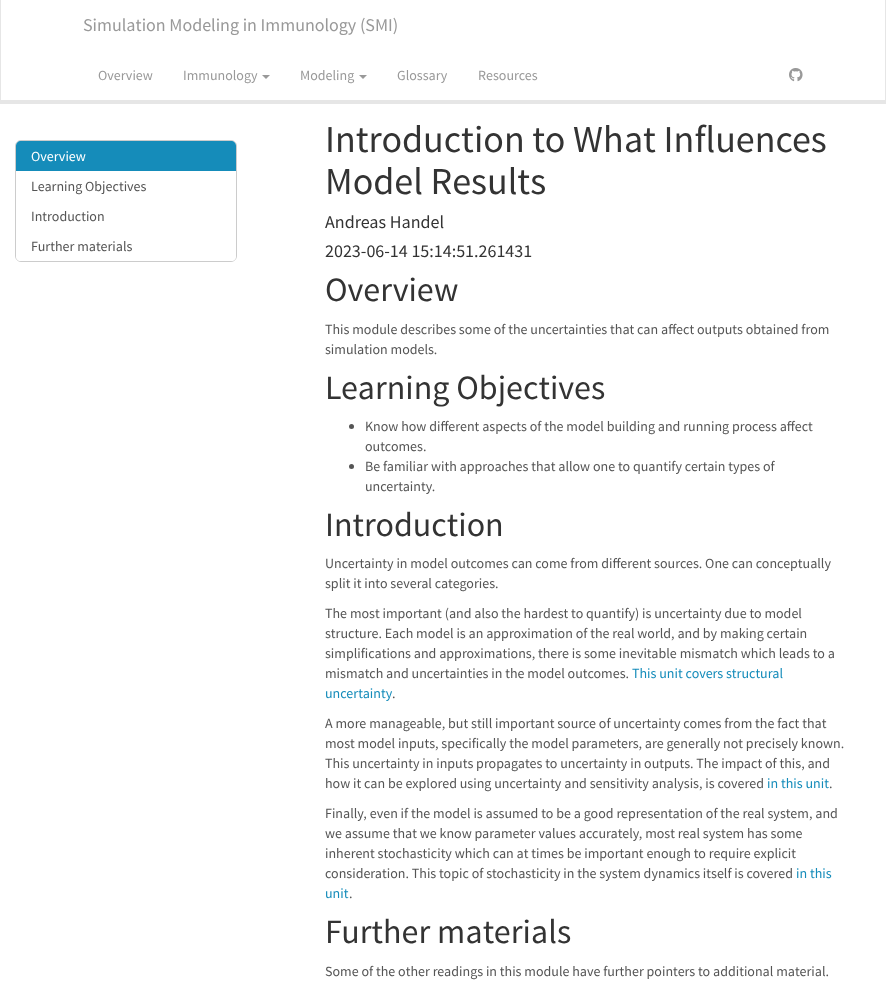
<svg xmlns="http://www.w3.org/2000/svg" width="886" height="1006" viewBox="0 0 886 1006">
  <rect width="100%" height="100%" fill="rgb(255,255,255)"/>
  <rect x="885" y="0" width="1" height="104" fill="rgb(230,230,230)"/>
  <rect x="0" y="100" width="886" height="4" fill="rgb(230,230,230)"/>
  <rect x="0" y="0" width="1" height="104" fill="rgb(230,230,230)"/>
  <text x="83" y="31" font-family="Source Sans Pro" font-size="18" fill="rgb(153,153,153)">Simulation Modeling in Immunology (SMI)</text>
  <g font-family="Source Sans Pro" font-size="14" fill="rgb(153,153,153)">
    <text x="98" y="80">Overview</text>
    <text x="183" y="80">Immunology</text>
  </g>
  <path d="M262 75H270L266 79Z" fill="rgb(153,153,153)"/>
  <text x="300" y="80" font-family="Source Sans Pro" font-size="14" fill="rgb(153,153,153)">Modeling</text>
  <path d="M359 75H367L363 79Z" fill="rgb(153,153,153)"/>
  <g font-family="Source Sans Pro" font-size="14" fill="rgb(153,153,153)">
    <text x="397" y="80">Glossary</text>
    <text x="478" y="80">Resources</text>
  </g>
  <image x="789" y="68" width="14" height="14" href="pic1.png"/>
  <g font-family="Source Sans Pro" font-size="38" fill="rgb(51,51,51)">
    <text>
      <tspan x="325" y="152">Introduction to What Influences</tspan>
      <tspan x="325" y="194">Model Results</tspan>
    </text>
  </g>
  <g font-family="Source Sans Pro" font-size="18" fill="rgb(51,51,51)">
    <text>
      <tspan x="325" y="228">Andreas Handel</tspan>
      <tspan x="325" y="257">2023-06-14 15:14:51.261431</tspan>
    </text>
  </g>
  <text x="325" y="301" font-family="Source Sans Pro" font-size="34" fill="rgb(51,51,51)">Overview</text>
  <g font-family="Source Sans Pro" font-size="14" fill="rgb(85,85,85)">
    <text>
      <tspan x="325" y="334">This module describes some of the uncertainties that can affect outputs obtained from</tspan>
      <tspan x="325" y="354">simulation models.</tspan>
    </text>
  </g>
  <text x="325" y="399" font-family="Source Sans Pro" font-size="34" fill="rgb(51,51,51)">Learning Objectives</text>
  <circle cx="351.5" cy="426.5" r="2.5" fill="rgb(85,85,85)"/>
  <g font-family="Source Sans Pro" font-size="14" fill="rgb(85,85,85)">
    <text>
      <tspan x="365" y="431">Know how different aspects of the model building and running process affect</tspan>
      <tspan x="365" y="451">outcomes.</tspan>
    </text>
  </g>
  <circle cx="351.5" cy="466.5" r="2.5" fill="rgb(85,85,85)"/>
  <g font-family="Source Sans Pro" font-size="14" fill="rgb(85,85,85)">
    <text>
      <tspan x="365" y="471">Be familiar with approaches that allow one to quantify certain types of</tspan>
      <tspan x="365" y="491">uncertainty.</tspan>
    </text>
  </g>
  <text x="325" y="536" font-family="Source Sans Pro" font-size="34" fill="rgb(51,51,51)">Introduction</text>
  <g font-family="Source Sans Pro" font-size="14" fill="rgb(85,85,85)">
    <text>
      <tspan x="325" y="568">Uncertainty in model outcomes can come from different sources. One can conceptually</tspan>
      <tspan x="325" y="588">split it into several categories.</tspan>
    </text>
    <text>
      <tspan x="325" y="618">The most important (and also the hardest to quantify) is uncertainty due to model</tspan>
      <tspan x="325" y="638">structure. Each model is an approximation of the real world, and by making certain</tspan>
      <tspan x="325" y="658">simplifications and approximations, there is some inevitable mismatch which leads to a</tspan>
      <tspan x="325" y="678">mismatch and uncertainties in the model outcomes.</tspan>
    </text>
  </g>
  <g font-family="Source Sans Pro" font-size="14" fill="rgb(21,140,186)">
    <text x="632" y="678">This unit covers structural</text>
    <text x="325" y="698">uncertainty</text>
  </g>
  <g font-family="Source Sans Pro" font-size="14" fill="rgb(85,85,85)">
    <text x="392" y="698">.</text>
    <text>
      <tspan x="325" y="728">A more manageable, but still important source of uncertainty comes from the fact that</tspan>
      <tspan x="325" y="748">most model inputs, specifically the model parameters, are generally not precisely known.</tspan>
      <tspan x="325" y="768">This uncertainty in inputs propagates to uncertainty in outputs. The impact of this, and</tspan>
      <tspan x="325" y="788">how it can be explored using uncertainty and sensitivity analysis, is covered</tspan>
    </text>
  </g>
  <text x="767" y="788" font-family="Source Sans Pro" font-size="14" fill="rgb(21,140,186)">in this unit</text>
  <g font-family="Source Sans Pro" font-size="14" fill="rgb(85,85,85)">
    <text x="829" y="788">.</text>
    <text>
      <tspan x="325" y="818">Finally, even if the model is assumed to be a good representation of the real system, and</tspan>
      <tspan x="325" y="838">we assume that we know parameter values accurately, most real system has some</tspan>
      <tspan x="325" y="858">inherent stochasticity which can at times be important enough to require explicit</tspan>
      <tspan x="325" y="878">consideration. This topic of stochasticity in the system dynamics itself is covered</tspan>
    </text>
  </g>
  <g font-family="Source Sans Pro" font-size="14" fill="rgb(21,140,186)">
    <text x="796" y="878">in this</text>
    <text x="325" y="898">unit</text>
  </g>
  <text x="349" y="898" font-family="Source Sans Pro" font-size="14" fill="rgb(85,85,85)">.</text>
  <text x="325" y="943" font-family="Source Sans Pro" font-size="34" fill="rgb(51,51,51)">Further materials</text>
  <text x="325" y="976" font-family="Source Sans Pro" font-size="14" fill="rgb(85,85,85)">Some of the other readings in this module have further pointers to additional material.</text>
  <rect x="15.5" y="140.5" width="221" height="121" rx="5.5" fill="none" stroke="rgb(204,204,204)"/>
  <path d="M21 141H231C234 141 236 143 236 146V171H16V146C16 143 18 141 21 141Z" fill="rgb(21,140,186)"/>
  <text x="31" y="161" font-family="Source Sans Pro" font-size="14" fill="rgb(255,255,255)">Overview</text>
  <g font-family="Source Sans Pro" font-size="14" fill="rgb(85,85,85)">
    <text x="31" y="191">Learning Objectives</text>
    <text x="31" y="221">Introduction</text>
  </g>
  <path d="M16 231H236V256C236 259 234 261 231 261H21C18 261 16 259 16 256Z" fill="rgb(255,255,255)"/>
  <text x="31" y="251" font-family="Source Sans Pro" font-size="14" fill="rgb(85,85,85)">Further materials</text>
</svg>
